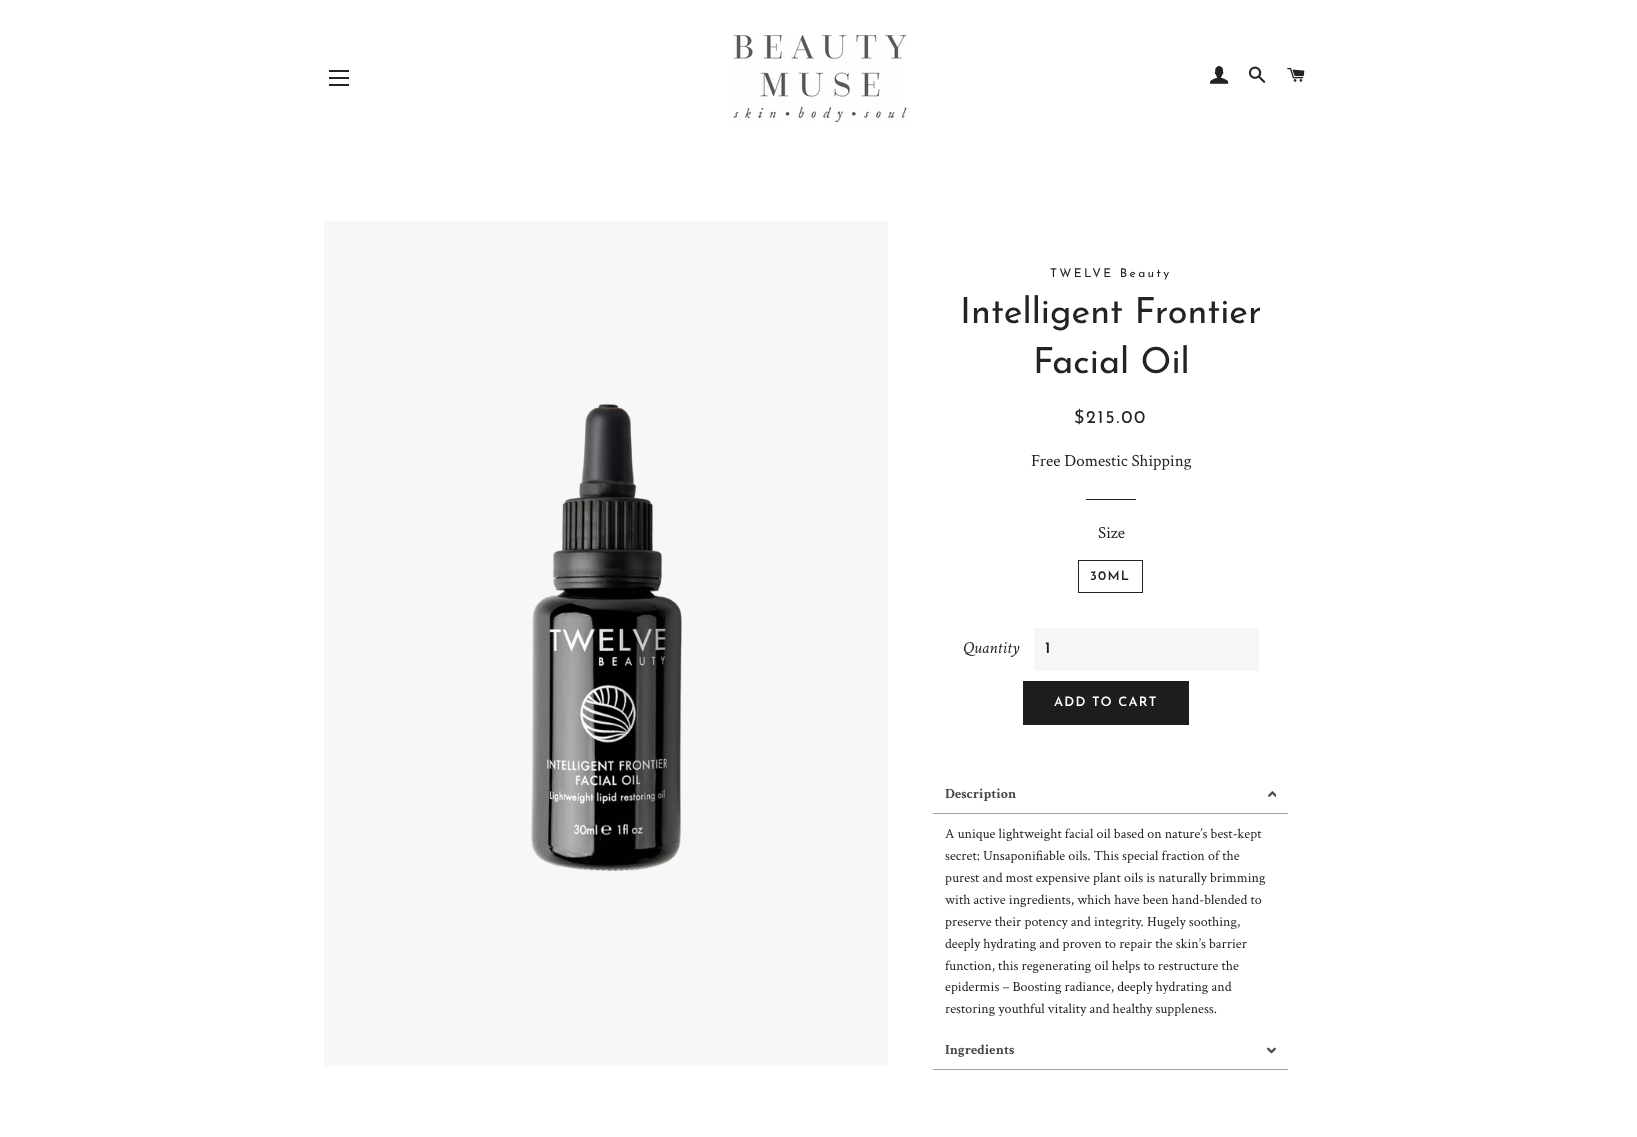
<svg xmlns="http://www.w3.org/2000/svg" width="1637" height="1137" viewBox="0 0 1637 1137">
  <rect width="100%" height="100%" fill="rgb(255,255,255)"/>
  <rect x="329" y="70" width="20" height="2" fill="rgb(34,35,35)"/>
  <rect x="329" y="77" width="20" height="2" fill="rgb(34,35,35)"/>
  <rect x="329" y="84" width="20" height="2" fill="rgb(34,35,35)"/>
  <image x="733" y="35" width="174" height="88" href="pic1.png"/>
  <image x="1210" y="65" width="19" height="19" href="pic2.png"/>
  <image x="1248" y="66" width="18" height="17" href="pic3.png"/>
  <image x="1287" y="67" width="18" height="15" href="pic4.png"/>
  <rect x="324" y="221" width="564" height="845" fill="rgb(247,247,247)"/>
  <image x="531" y="404" width="151" height="467" href="pic5.png"/>
  <text x="1050" y="277" font-family="Josefin Sans" font-size="12" letter-spacing="2.4" fill="rgb(34,35,35)">TWELVE Beauty</text>
  <g font-family="Josefin Sans" font-size="36" fill="rgb(34,35,35)">
    <text x="960" y="323">Intelligent Frontier</text>
    <text x="1033" y="373">Facial Oil</text>
  </g>
  <text x="1074" y="423" font-family="Josefin Sans" font-size="18" letter-spacing="1.75" fill="rgb(34,35,35)">$215.00</text>
  <text x="1031" y="466" font-family="Crimson Text" font-size="17" fill="rgb(34,35,35)">Free Domestic Shipping</text>
  <rect x="1086" y="499" width="50" height="1" fill="rgb(28,29,29)"/>
  <text x="1098" y="538" font-family="Crimson Text" font-size="17" fill="rgb(34,35,35)">Size</text>
  <rect x="1078.5" y="560.5" width="64" height="32" fill="none" stroke="rgb(34,35,35)"/>
  <text x="1090" y="580" font-family="Josefin Sans" font-size="13" font-weight="600" letter-spacing="1.25" fill="rgb(34,35,35)">30ML</text>
  <text x="963" y="653" font-family="Crimson Text" font-size="17" font-style="italic" fill="rgb(34,35,35)">Quantity</text>
  <rect x="1034" y="628" width="225" height="43" fill="rgb(246,246,246)"/>
  <text x="1045" y="653" font-family="Josefin Sans" font-size="16" font-weight="600" letter-spacing="2" fill="rgb(28,29,29)">1</text>
  <rect x="1023" y="681" width="166" height="44" fill="rgb(28,29,29)"/>
  <text x="1054" y="706" font-family="Josefin Sans" font-size="13" font-weight="600" letter-spacing="1.25" fill="rgb(255,255,255)">ADD TO CART</text>
  <rect x="933" y="813" width="355" height="1" fill="rgb(163,160,160)"/>
  <text x="945" y="798" font-family="Crimson Text" font-size="14" font-weight="bold" fill="rgb(74,72,72)">Description</text>
  <image x="1268" y="791" width="8" height="6" href="pic6.png"/>
  <g font-family="Crimson Text" font-size="14" fill="rgb(34,35,35)">
    <text>
      <tspan x="945" y="838">A unique lightweight facial oil based on nature’s best-kept</tspan>
      <tspan x="945" y="860">secret: Unsaponifiable oils. This special fraction of the</tspan>
      <tspan x="945" y="882">purest and most expensive plant oils is naturally brimming</tspan>
      <tspan x="945" y="904">with active ingredients, which have been hand-blended to</tspan>
      <tspan x="945" y="926">preserve their potency and integrity. Hugely soothing,</tspan>
      <tspan x="945" y="948">deeply hydrating and proven to repair the skin’s barrier</tspan>
      <tspan x="945" y="970">function, this regenerating oil helps to restructure the</tspan>
      <tspan x="945" y="991">epidermis – Boosting radiance, deeply hydrating and</tspan>
      <tspan x="945" y="1013">restoring youthful vitality and healthy suppleness.</tspan>
    </text>
  </g>
  <rect x="933" y="1069" width="355" height="1" fill="rgb(163,160,160)"/>
  <text x="945" y="1054" font-family="Crimson Text" font-size="14" font-weight="bold" fill="rgb(74,72,72)">Ingredients</text>
  <image x="1267" y="1047" width="9" height="7" href="pic7.png"/>
</svg>
